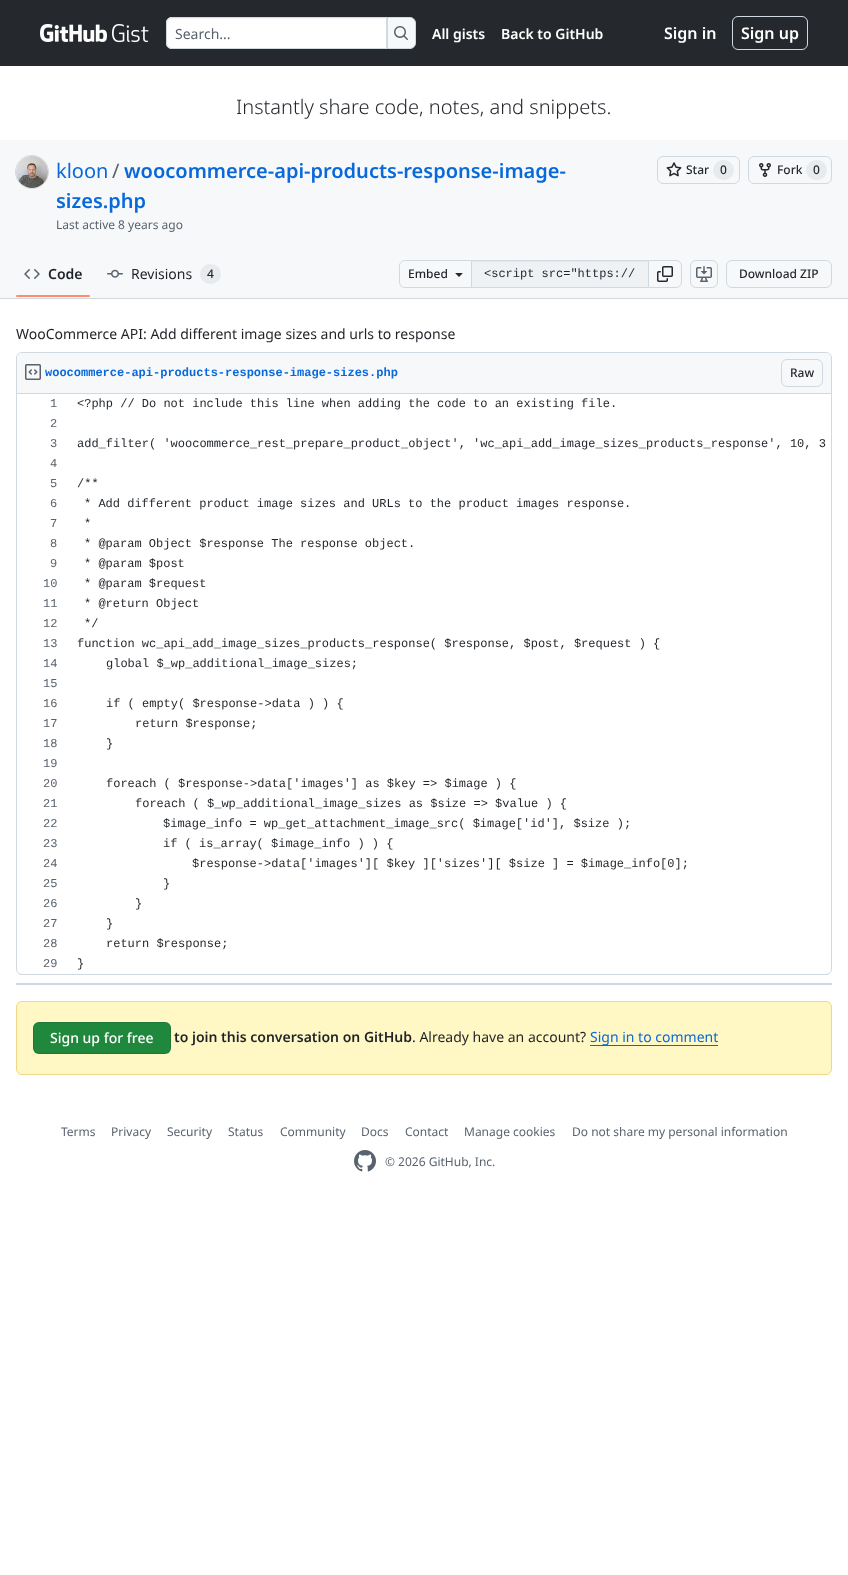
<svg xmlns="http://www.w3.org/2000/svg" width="848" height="1575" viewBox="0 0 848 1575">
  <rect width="100%" height="100%" fill="rgb(255,255,255)"/>
  <rect x="0" y="0" width="848" height="66" fill="rgb(37,41,46)"/>
  <image x="40" y="24" width="67" height="18" href="pic1.png"/>
  <image x="112" y="24" width="37" height="19" href="pic2.png"/>
  <path d="M172 17H387V49H172C168.5 49 166 46.5 166 43V23C166 19.5 168.5 17 172 17Z" fill="rgb(255,255,255)"/>
  <path d="M172 19H386V18H172C169 18 167 21 167 24C167 21 169 19 172 19Z" fill="rgb(246,246,246)"/>
  <path d="M172 17.5H386.5V48.5H172C169 48.5 166.5 46 166.5 43V23C166.5 20 169 17.5 172 17.5Z" fill="none" stroke="rgb(209,217,224)"/>
  <text x="175" y="39" font-family="Noto Sans" font-size="14" fill="rgb(89,99,110)">Search...</text>
  <path d="M387.5 17.5H410C413 17.5 415.5 20 415.5 23V43C415.5 46 413 48.5 410 48.5H387.5Z" fill="rgb(246,248,250)" stroke="rgb(209,217,224)"/>
  <image x="394" y="26" width="14" height="14" href="pic3.png"/>
  <g font-family="Noto Sans" font-size="14" font-weight="600" fill="rgb(255,255,255)">
    <text x="432" y="39">All gists</text>
    <text x="501" y="39">Back to GitHub</text>
  </g>
  <text x="664" y="39" font-family="Noto Sans" font-size="16" font-weight="600" fill="rgb(255,255,255)">Sign in</text>
  <rect x="732.5" y="16.5" width="75" height="33" rx="5.5" fill="none" stroke="rgb(209,217,224)"/>
  <text x="741" y="39" font-family="Noto Sans" font-size="16" font-weight="600" fill="rgb(255,255,255)">Sign up</text>
  <text x="236" y="114" font-family="Noto Sans" font-size="20" font-weight="300" fill="rgb(31,35,40)">Instantly share code, notes, and snippets.</text>
  <rect x="0" y="140" width="848" height="158" fill="rgb(246,248,250)"/>
  <rect x="0" y="298" width="848" height="1" fill="rgb(209,217,224)"/>
  <circle cx="32" cy="172" r="16.5" fill="none" stroke="rgb(214,216,219)"/>
  <circle cx="32" cy="172" r="16" fill="rgb(255,255,255)"/>
  <image x="16" y="156" width="32" height="32" href="pic4.png"/>
  <text x="56" y="178" font-family="Noto Sans" font-size="20" fill="rgb(9,105,218)">kloon</text>
  <text x="112" y="178" font-family="Noto Sans" font-size="20" fill="rgb(89,99,110)">/</text>
  <g font-family="Noto Sans" font-size="20" font-weight="600" fill="rgb(9,105,218)">
    <text x="124" y="178">woocommerce-api-products-response-image-</text>
    <text x="56" y="208">sizes.php</text>
  </g>
  <text x="56" y="229" font-family="Noto Sans" font-size="12" fill="rgb(89,99,110)">Last active 8 years ago</text>
  <rect x="657.5" y="156.5" width="82" height="27" rx="5.5" fill="none" stroke="rgb(209,217,224)"/>
  <image x="666" y="162" width="16" height="15" href="pic5.png"/>
  <text x="686" y="174" font-family="Noto Sans" font-size="12" font-weight="500" fill="rgb(37,41,46)">Star</text>
  <rect x="713" y="160" width="21" height="20" rx="10" fill="rgb(232,235,238)"/>
  <text x="720" y="174" font-family="Noto Sans" font-size="12" font-weight="500" fill="rgb(37,41,46)">0</text>
  <rect x="748.5" y="156.5" width="83" height="27" rx="5.5" fill="none" stroke="rgb(209,217,224)"/>
  <image x="759" y="163" width="12" height="14" href="pic6.png"/>
  <text x="777" y="174" font-family="Noto Sans" font-size="12" font-weight="500" fill="rgb(37,41,46)">Fork</text>
  <rect x="806" y="160" width="21" height="20" rx="10" fill="rgb(232,235,238)"/>
  <text x="813" y="174" font-family="Noto Sans" font-size="12" font-weight="500" fill="rgb(37,41,46)">0</text>
  <image x="24" y="269" width="16" height="10" href="pic7.png"/>
  <text x="48" y="279" font-family="Noto Sans" font-size="14" font-weight="600" fill="rgb(31,35,40)">Code</text>
  <rect x="16" y="295" width="74" height="2" rx="1" fill="rgb(253,140,115)"/>
  <image x="107" y="269" width="16" height="9" href="pic8.png"/>
  <text x="131" y="279" font-family="Noto Sans" font-size="14" fill="rgb(31,35,40)">Revisions</text>
  <rect x="200" y="264" width="21" height="20" rx="10" fill="rgb(232,235,238)"/>
  <text x="207" y="278" font-family="Noto Sans" font-size="12" font-weight="500" fill="rgb(31,35,40)">4</text>
  <path d="M405 260H471V288H405C402 288 399 285 399 282V266C399 263 402 260 405 260ZM405 261H471V287H405C402 287 400 285 400 282V266C400 263 402 261 405 261Z" fill="rgb(209,217,224)" fill-rule="evenodd"/>
  <text x="408" y="278" font-family="Noto Sans" font-size="12" font-weight="500" fill="rgb(37,41,46)">Embed</text>
  <image x="455" y="273" width="8" height="4" href="pic9.png"/>
  <rect x="472" y="262" width="176" height="25" fill="rgb(239,242,245)"/>
  <rect x="472" y="261" width="176" height="1" fill="rgb(231,234,237)"/>
  <rect x="471" y="260" width="177" height="1" fill="rgb(209,217,224)"/>
  <rect x="471" y="287" width="177" height="1" fill="rgb(209,217,224)"/>
  <rect x="471" y="260" width="1" height="28" fill="rgb(209,217,224)"/>
  <text x="484" y="277" font-family="Liberation Mono" font-size="12" fill="rgb(31,35,40)">&lt;script src="https://</text>
  <path d="M648.5 260.5H676C679 260.5 681.5 263 681.5 266V282C681.5 285 679 287.5 676 287.5H648.5Z" fill="none" stroke="rgb(209,217,224)"/>
  <image x="657" y="266" width="16" height="16" href="pic10.png"/>
  <rect x="690.5" y="260.5" width="27" height="27" rx="5.5" fill="none" stroke="rgb(209,217,224)"/>
  <image x="696" y="266" width="16" height="16" href="pic11.png"/>
  <rect x="726.5" y="260.5" width="105" height="27" rx="5.5" fill="none" stroke="rgb(209,217,224)"/>
  <text x="739" y="278" font-family="Noto Sans" font-size="12" font-weight="500" fill="rgb(37,41,46)">Download ZIP</text>
  <text x="16" y="339" font-family="Noto Sans" font-size="14" fill="rgb(31,35,40)">WooCommerce API: Add different image sizes and urls to response</text>
  <rect x="16.5" y="352.5" width="815" height="622" rx="5.5" fill="none" stroke="rgb(209,217,224)"/>
  <path d="M23 353H825C828.5 353 831 355.5 831 359V394H17V359C17 355.5 19.5 353 23 353Z" fill="rgb(246,248,250)"/>
  <rect x="17" y="393" width="814" height="1" fill="rgb(209,217,224)"/>
  <image x="25" y="364" width="16" height="16" href="pic12.png"/>
  <text x="45" y="376" font-family="Liberation Mono" font-size="12" font-weight="bold" fill="rgb(9,105,218)">woocommerce-api-products-response-image-sizes.php</text>
  <rect x="781.5" y="359.5" width="41" height="27" rx="5.5" fill="none" stroke="rgb(209,217,224)"/>
  <text x="790" y="377" font-family="Noto Sans" font-size="12" font-weight="500" fill="rgb(37,41,46)">Raw</text>
  <rect x="20" y="974" width="808" height="1" fill="rgb(209,217,224)"/>
  <text x="50" y="407" font-family="Liberation Mono" font-size="12" fill="rgb(89,99,110)">1</text>
  <text x="77" y="407" font-family="Liberation Mono" font-size="12" fill="rgb(31,35,40)">&lt;?php // Do not include this line when adding the code to an existing file.</text>
  <g font-family="Liberation Mono" font-size="12" fill="rgb(89,99,110)">
    <text>
      <tspan x="50" y="427">2</tspan>
      <tspan x="50" y="447">3</tspan>
    </text>
  </g>
  <text x="77" y="447" font-family="Liberation Mono" font-size="12" fill="rgb(31,35,40)">add_filter( 'woocommerce_rest_prepare_product_object', 'wc_api_add_image_sizes_products_response', 10, 3</text>
  <g font-family="Liberation Mono" font-size="12" fill="rgb(89,99,110)">
    <text>
      <tspan x="50" y="467">4</tspan>
      <tspan x="50" y="487">5</tspan>
    </text>
  </g>
  <text x="77" y="487" font-family="Liberation Mono" font-size="12" fill="rgb(31,35,40)">/**</text>
  <text x="50" y="507" font-family="Liberation Mono" font-size="12" fill="rgb(89,99,110)">6</text>
  <text x="84" y="507" font-family="Liberation Mono" font-size="12" fill="rgb(31,35,40)">* Add different product image sizes and URLs to the product images response.</text>
  <text x="50" y="527" font-family="Liberation Mono" font-size="12" fill="rgb(89,99,110)">7</text>
  <text x="84" y="527" font-family="Liberation Mono" font-size="12" fill="rgb(31,35,40)">*</text>
  <text x="50" y="547" font-family="Liberation Mono" font-size="12" fill="rgb(89,99,110)">8</text>
  <text x="84" y="547" font-family="Liberation Mono" font-size="12" fill="rgb(31,35,40)">* @param Object $response The response object.</text>
  <text x="50" y="567" font-family="Liberation Mono" font-size="12" fill="rgb(89,99,110)">9</text>
  <text x="84" y="567" font-family="Liberation Mono" font-size="12" fill="rgb(31,35,40)">* @param $post</text>
  <text x="43" y="587" font-family="Liberation Mono" font-size="12" fill="rgb(89,99,110)">10</text>
  <text x="84" y="587" font-family="Liberation Mono" font-size="12" fill="rgb(31,35,40)">* @param $request</text>
  <text x="43" y="607" font-family="Liberation Mono" font-size="12" fill="rgb(89,99,110)">11</text>
  <text x="84" y="607" font-family="Liberation Mono" font-size="12" fill="rgb(31,35,40)">* @return Object</text>
  <text x="43" y="627" font-family="Liberation Mono" font-size="12" fill="rgb(89,99,110)">12</text>
  <text x="84" y="627" font-family="Liberation Mono" font-size="12" fill="rgb(31,35,40)">*/</text>
  <text x="43" y="647" font-family="Liberation Mono" font-size="12" fill="rgb(89,99,110)">13</text>
  <text x="77" y="647" font-family="Liberation Mono" font-size="12" fill="rgb(31,35,40)">function wc_api_add_image_sizes_products_response( $response, $post, $request ) {</text>
  <text x="43" y="667" font-family="Liberation Mono" font-size="12" fill="rgb(89,99,110)">14</text>
  <text x="106" y="667" font-family="Liberation Mono" font-size="12" fill="rgb(31,35,40)">global $_wp_additional_image_sizes;</text>
  <g font-family="Liberation Mono" font-size="12" fill="rgb(89,99,110)">
    <text>
      <tspan x="43" y="687">15</tspan>
      <tspan x="43" y="707">16</tspan>
    </text>
  </g>
  <text x="106" y="707" font-family="Liberation Mono" font-size="12" fill="rgb(31,35,40)">if ( empty( $response-&gt;data ) ) {</text>
  <text x="43" y="727" font-family="Liberation Mono" font-size="12" fill="rgb(89,99,110)">17</text>
  <text x="135" y="727" font-family="Liberation Mono" font-size="12" fill="rgb(31,35,40)">return $response;</text>
  <text x="43" y="747" font-family="Liberation Mono" font-size="12" fill="rgb(89,99,110)">18</text>
  <text x="106" y="747" font-family="Liberation Mono" font-size="12" fill="rgb(31,35,40)">}</text>
  <g font-family="Liberation Mono" font-size="12" fill="rgb(89,99,110)">
    <text>
      <tspan x="43" y="767">19</tspan>
      <tspan x="43" y="787">20</tspan>
    </text>
  </g>
  <text x="106" y="787" font-family="Liberation Mono" font-size="12" fill="rgb(31,35,40)">foreach ( $response-&gt;data['images'] as $key =&gt; $image ) {</text>
  <text x="43" y="807" font-family="Liberation Mono" font-size="12" fill="rgb(89,99,110)">21</text>
  <text x="135" y="807" font-family="Liberation Mono" font-size="12" fill="rgb(31,35,40)">foreach ( $_wp_additional_image_sizes as $size =&gt; $value ) {</text>
  <text x="43" y="827" font-family="Liberation Mono" font-size="12" fill="rgb(89,99,110)">22</text>
  <text x="163" y="827" font-family="Liberation Mono" font-size="12" fill="rgb(31,35,40)">$image_info = wp_get_attachment_image_src( $image['id'], $size );</text>
  <text x="43" y="847" font-family="Liberation Mono" font-size="12" fill="rgb(89,99,110)">23</text>
  <text x="163" y="847" font-family="Liberation Mono" font-size="12" fill="rgb(31,35,40)">if ( is_array( $image_info ) ) {</text>
  <text x="43" y="867" font-family="Liberation Mono" font-size="12" fill="rgb(89,99,110)">24</text>
  <text x="192" y="867" font-family="Liberation Mono" font-size="12" fill="rgb(31,35,40)">$response-&gt;data['images'][ $key ]['sizes'][ $size ] = $image_info[0];</text>
  <text x="43" y="887" font-family="Liberation Mono" font-size="12" fill="rgb(89,99,110)">25</text>
  <text x="163" y="887" font-family="Liberation Mono" font-size="12" fill="rgb(31,35,40)">}</text>
  <text x="43" y="907" font-family="Liberation Mono" font-size="12" fill="rgb(89,99,110)">26</text>
  <text x="135" y="907" font-family="Liberation Mono" font-size="12" fill="rgb(31,35,40)">}</text>
  <text x="43" y="927" font-family="Liberation Mono" font-size="12" fill="rgb(89,99,110)">27</text>
  <text x="106" y="927" font-family="Liberation Mono" font-size="12" fill="rgb(31,35,40)">}</text>
  <text x="43" y="947" font-family="Liberation Mono" font-size="12" fill="rgb(89,99,110)">28</text>
  <text x="106" y="947" font-family="Liberation Mono" font-size="12" fill="rgb(31,35,40)">return $response;</text>
  <text x="43" y="967" font-family="Liberation Mono" font-size="12" fill="rgb(89,99,110)">29</text>
  <text x="77" y="967" font-family="Liberation Mono" font-size="12" fill="rgb(31,35,40)">}</text>
  <rect x="16" y="983" width="816" height="2" fill="rgb(209,217,224)"/>
  <rect x="16" y="1001" width="816" height="74" rx="6" fill="rgb(255,248,197)"/>
  <rect x="16.5" y="1001.5" width="815" height="73" rx="5.5" fill="none" stroke="rgba(212,167,44,0.4)"/>
  <rect x="33" y="1022" width="138" height="32" rx="6" fill="rgb(31,136,61)"/>
  <rect x="33.5" y="1022.5" width="137" height="31" rx="5.5" fill="none" stroke="rgba(31,35,40,0.15)"/>
  <text x="50" y="1043" font-family="Noto Sans" font-size="14" font-weight="500" fill="rgb(255,255,255)">Sign up for free</text>
  <text x="174" y="1042" font-family="Noto Sans" font-size="14" font-weight="600" fill="rgb(31,35,40)">to join this conversation on GitHub</text>
  <text x="412" y="1042" font-family="Noto Sans" font-size="14" fill="rgb(31,35,40)">. Already have an account?</text>
  <rect x="590" y="1045" width="128" height="1" fill="rgb(9,105,218)"/>
  <text x="590" y="1042" font-family="Noto Sans" font-size="14" fill="rgb(9,105,218)">Sign in to comment</text>
  <g font-family="Noto Sans" font-size="12" fill="rgb(89,99,110)">
    <text x="61" y="1136">Terms</text>
    <text x="111" y="1136">Privacy</text>
    <text x="167" y="1136">Security</text>
    <text x="228" y="1136">Status</text>
    <text x="280" y="1136">Community</text>
    <text x="361" y="1136">Docs</text>
    <text x="405" y="1136">Contact</text>
    <text x="464" y="1136">Manage cookies</text>
    <text x="572" y="1136">Do not share my personal information</text>
  </g>
  <image x="354" y="1150" width="22" height="22" href="pic13.png"/>
  <text x="385" y="1166" font-family="Noto Sans" font-size="12" fill="rgb(89,99,110)">© 2026 GitHub, Inc.</text>
</svg>
